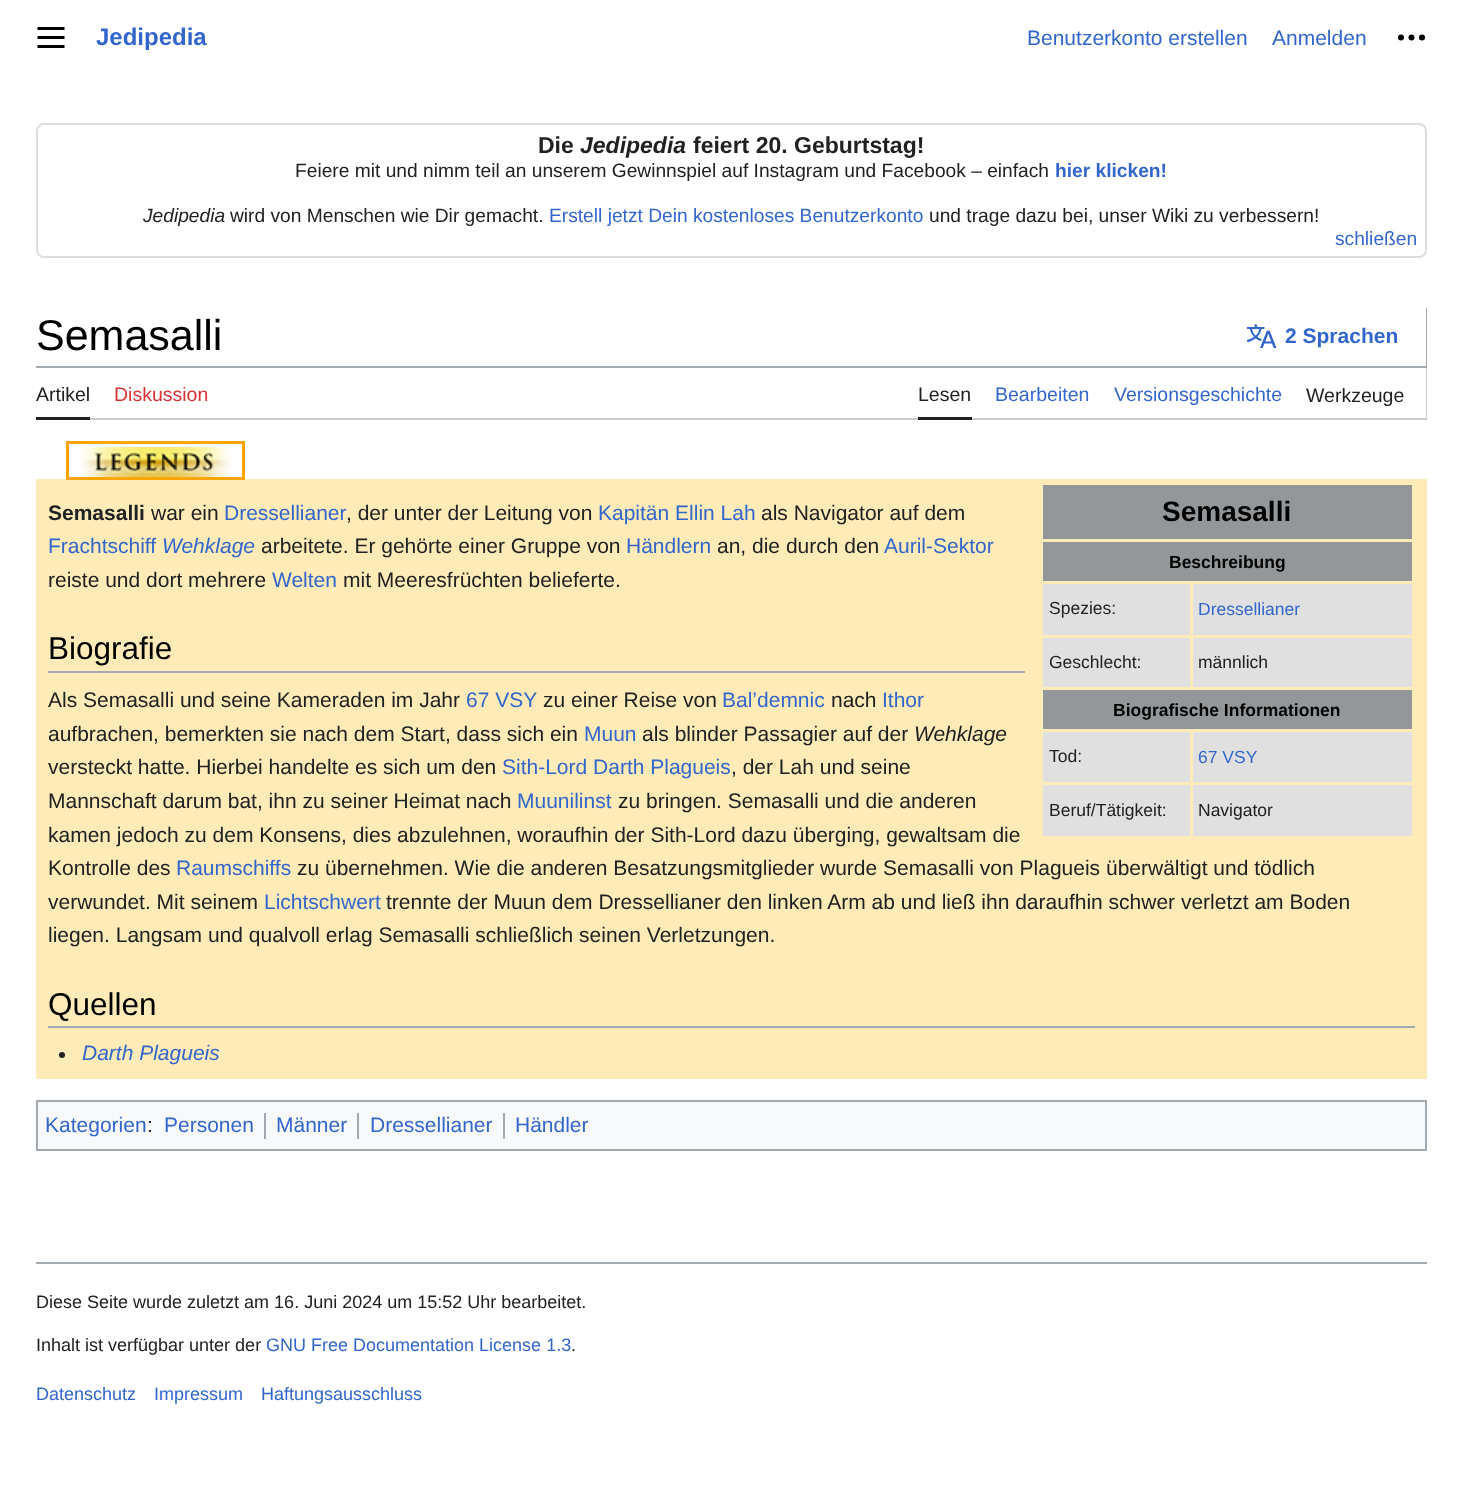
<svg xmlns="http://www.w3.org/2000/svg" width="1462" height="1506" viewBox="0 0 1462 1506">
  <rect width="100%" height="100%" fill="rgb(255,255,255)"/>
  <image x="37" y="27" width="28" height="21" href="pic1.png"/>
  <text x="96" y="45" font-family="Liberation Sans" font-size="24" font-weight="bold" fill="rgb(51,102,204)">Jedipedia</text>
  <g font-family="Liberation Sans" font-size="21" fill="rgb(51,102,204)">
    <text x="1027" y="45">Benutzerkonto erstellen</text>
    <text x="1272" y="45">Anmelden</text>
  </g>
  <image x="1398" y="34" width="27" height="7" href="pic2.png"/>
  <rect x="37" y="124" width="1389" height="133" rx="7" fill="none" stroke="rgb(221,221,221)" stroke-width="2"/>
  <text x="538" y="153" font-family="Liberation Sans" font-size="23" font-weight="bold" fill="rgb(32,33,34)">Die</text>
  <text x="580" y="153" font-family="Liberation Sans" font-size="23" font-weight="bold" font-style="italic" fill="rgb(32,33,34)">Jedipedia</text>
  <text x="693" y="153" font-family="Liberation Sans" font-size="23" font-weight="bold" fill="rgb(32,33,34)">feiert 20. Geburtstag!</text>
  <text x="295" y="177" font-family="Liberation Sans" font-size="19.2" fill="rgb(32,33,34)">Feiere mit und nimm teil an unserem Gewinnspiel auf Instagram und Facebook – einfach</text>
  <text x="1055" y="177" font-family="Liberation Sans" font-size="19.2" font-weight="bold" fill="rgb(51,102,204)">hier klicken!</text>
  <text x="143" y="222" font-family="Liberation Sans" font-size="19.2" font-style="italic" fill="rgb(32,33,34)">Jedipedia</text>
  <text x="230" y="222" font-family="Liberation Sans" font-size="19.2" fill="rgb(32,33,34)">wird von Menschen wie Dir gemacht.</text>
  <text x="549" y="222" font-family="Liberation Sans" font-size="19.2" fill="rgb(51,102,204)">Erstell jetzt Dein kostenloses Benutzerkonto</text>
  <text x="929" y="222" font-family="Liberation Sans" font-size="19.2" fill="rgb(32,33,34)">und trage dazu bei, unser Wiki zu verbessern!</text>
  <text x="1335" y="245" font-family="Liberation Sans" font-size="19.2" fill="rgb(51,102,204)">schließen</text>
  <path d="M36 366V368H1427V308H1426V366Z" fill="rgb(162,169,177)"/>
  <text x="36" y="350" font-family="Liberation Sans" font-size="43" fill="rgb(0,0,0)">Semasalli</text>
  <image x="1247" y="324" width="30" height="24" href="pic3.png"/>
  <text x="1285" y="343" font-family="Liberation Sans" font-size="21" font-weight="bold" fill="rgb(51,102,204)">2 Sprachen</text>
  <path d="M36 418V420H1427V368H1426V418Z" fill="rgb(200,204,209)"/>
  <rect x="36" y="417" width="54" height="3" fill="rgb(32,33,34)"/>
  <text x="36" y="401" font-family="Liberation Sans" font-size="19.5" fill="rgb(32,33,34)">Artikel</text>
  <text x="114" y="401" font-family="Liberation Sans" font-size="19.5" fill="rgb(215,51,51)">Diskussion</text>
  <rect x="918" y="417" width="54" height="3" fill="rgb(32,33,34)"/>
  <text x="918" y="401" font-family="Liberation Sans" font-size="19.5" fill="rgb(32,33,34)">Lesen</text>
  <g font-family="Liberation Sans" font-size="19.5" fill="rgb(51,102,204)">
    <text x="995" y="401">Bearbeiten</text>
    <text x="1114" y="401">Versionsgeschichte</text>
  </g>
  <text x="1306" y="402" font-family="Liberation Sans" font-size="19.5" fill="rgb(32,33,34)">Werkzeuge</text>
  <image x="80" y="447" width="151" height="30" href="pic4.png"/>
  <rect x="36" y="479" width="1391" height="600" fill="rgb(255,235,184)"/>
  <rect x="67.5" y="442.5" width="176" height="36" fill="none" stroke="rgb(255,165,0)" stroke-width="3"/>
  <text x="48" y="520" font-family="Liberation Sans" font-size="21" font-weight="bold" fill="rgb(32,33,34)">Semasalli</text>
  <text x="151" y="520" font-family="Liberation Sans" font-size="21" fill="rgb(32,33,34)">war ein</text>
  <text x="224" y="520" font-family="Liberation Sans" font-size="21" fill="rgb(51,102,204)">Dressellianer</text>
  <text x="346" y="520" font-family="Liberation Sans" font-size="21" fill="rgb(32,33,34)">, der unter der Leitung von</text>
  <text x="598" y="520" font-family="Liberation Sans" font-size="21" fill="rgb(51,102,204)">Kapitän Ellin Lah</text>
  <text x="761" y="520" font-family="Liberation Sans" font-size="21" fill="rgb(32,33,34)">als Navigator auf dem</text>
  <text x="48" y="553" font-family="Liberation Sans" font-size="21" fill="rgb(51,102,204)">Frachtschiff</text>
  <text x="162" y="553" font-family="Liberation Sans" font-size="21" font-style="italic" fill="rgb(51,102,204)">Wehklage</text>
  <text x="261" y="553" font-family="Liberation Sans" font-size="21" fill="rgb(32,33,34)">arbeitete. Er gehörte einer Gruppe von</text>
  <text x="626" y="553" font-family="Liberation Sans" font-size="21" fill="rgb(51,102,204)">Händlern</text>
  <text x="717" y="553" font-family="Liberation Sans" font-size="21" fill="rgb(32,33,34)">an, die durch den</text>
  <text x="884" y="553" font-family="Liberation Sans" font-size="21" fill="rgb(51,102,204)">Auril-Sektor</text>
  <text x="48" y="587" font-family="Liberation Sans" font-size="21" fill="rgb(32,33,34)">reiste und dort mehrere</text>
  <text x="272" y="587" font-family="Liberation Sans" font-size="21" fill="rgb(51,102,204)">Welten</text>
  <text x="343" y="587" font-family="Liberation Sans" font-size="21" fill="rgb(32,33,34)">mit Meeresfrüchten belieferte.</text>
  <rect x="1043" y="485" width="369" height="54" fill="rgb(148,151,153)"/>
  <text x="1162" y="521" font-family="Liberation Sans" font-size="28" font-weight="bold" fill="rgb(0,0,0)">Semasalli</text>
  <rect x="1043" y="542" width="369" height="39" fill="rgb(148,151,153)"/>
  <text x="1169" y="568" font-family="Liberation Sans" font-size="17.5" font-weight="bold" fill="rgb(0,0,0)">Beschreibung</text>
  <rect x="1043" y="584" width="147" height="51" fill="rgb(224,224,224)"/>
  <text x="1049" y="614" font-family="Liberation Sans" font-size="17.5" fill="rgb(32,33,34)">Spezies:</text>
  <rect x="1193" y="584" width="219" height="51" fill="rgb(224,224,224)"/>
  <text x="1198" y="615" font-family="Liberation Sans" font-size="17.5" fill="rgb(51,102,204)">Dressellianer</text>
  <rect x="1043" y="638" width="147" height="49" fill="rgb(224,224,224)"/>
  <text x="1049" y="668" font-family="Liberation Sans" font-size="17.5" fill="rgb(32,33,34)">Geschlecht:</text>
  <rect x="1193" y="638" width="219" height="49" fill="rgb(224,224,224)"/>
  <text x="1198" y="668" font-family="Liberation Sans" font-size="17.5" fill="rgb(32,33,34)">männlich</text>
  <rect x="1043" y="690" width="369" height="39" fill="rgb(148,151,153)"/>
  <text x="1113" y="716" font-family="Liberation Sans" font-size="17.5" font-weight="bold" fill="rgb(0,0,0)">Biografische Informationen</text>
  <rect x="1043" y="732" width="147" height="50" fill="rgb(224,224,224)"/>
  <text x="1049" y="762" font-family="Liberation Sans" font-size="17.5" fill="rgb(32,33,34)">Tod:</text>
  <rect x="1193" y="732" width="219" height="50" fill="rgb(224,224,224)"/>
  <text x="1198" y="763" font-family="Liberation Sans" font-size="17.5" fill="rgb(51,102,204)">67 VSY</text>
  <rect x="1043" y="785" width="147" height="51" fill="rgb(224,224,224)"/>
  <text x="1049" y="816" font-family="Liberation Sans" font-size="17.5" fill="rgb(32,33,34)">Beruf/Tätigkeit:</text>
  <rect x="1193" y="785" width="219" height="51" fill="rgb(224,224,224)"/>
  <text x="1198" y="816" font-family="Liberation Sans" font-size="17.5" fill="rgb(32,33,34)">Navigator</text>
  <rect x="48" y="671" width="977" height="2" fill="rgb(162,169,177)"/>
  <text x="48" y="659" font-family="Liberation Sans" font-size="31.5" fill="rgb(0,0,0)">Biografie</text>
  <text x="48" y="707" font-family="Liberation Sans" font-size="21" fill="rgb(32,33,34)">Als Semasalli und seine Kameraden im Jahr</text>
  <text x="466" y="707" font-family="Liberation Sans" font-size="21" fill="rgb(51,102,204)">67 VSY</text>
  <text x="543" y="707" font-family="Liberation Sans" font-size="21" fill="rgb(32,33,34)">zu einer Reise von</text>
  <text x="722" y="707" font-family="Liberation Sans" font-size="21" fill="rgb(51,102,204)">Bal’demnic</text>
  <text x="831" y="707" font-family="Liberation Sans" font-size="21" fill="rgb(32,33,34)">nach</text>
  <text x="882" y="707" font-family="Liberation Sans" font-size="21" fill="rgb(51,102,204)">Ithor</text>
  <text x="48" y="741" font-family="Liberation Sans" font-size="21" fill="rgb(32,33,34)">aufbrachen, bemerkten sie nach dem Start, dass sich ein</text>
  <text x="584" y="741" font-family="Liberation Sans" font-size="21" fill="rgb(51,102,204)">Muun</text>
  <text x="642" y="741" font-family="Liberation Sans" font-size="21" fill="rgb(32,33,34)">als blinder Passagier auf der</text>
  <text x="914" y="741" font-family="Liberation Sans" font-size="21" font-style="italic" fill="rgb(32,33,34)">Wehklage</text>
  <text x="48" y="774" font-family="Liberation Sans" font-size="21" fill="rgb(32,33,34)">versteckt hatte. Hierbei handelte es sich um den</text>
  <text x="502" y="774" font-family="Liberation Sans" font-size="21" fill="rgb(51,102,204)">Sith-Lord Darth Plagueis</text>
  <g font-family="Liberation Sans" font-size="21" fill="rgb(32,33,34)">
    <text x="731" y="774">, der Lah und seine</text>
    <text x="48" y="808">Mannschaft darum bat, ihn zu seiner Heimat nach</text>
  </g>
  <text x="517" y="808" font-family="Liberation Sans" font-size="21" fill="rgb(51,102,204)">Muunilinst</text>
  <g font-family="Liberation Sans" font-size="21" fill="rgb(32,33,34)">
    <text x="618" y="808">zu bringen. Semasalli und die anderen</text>
    <text>
      <tspan x="48" y="842">kamen jedoch zu dem Konsens, dies abzulehnen, woraufhin der Sith-Lord dazu überging, gewaltsam die</tspan>
      <tspan x="48" y="875">Kontrolle des</tspan>
    </text>
  </g>
  <text x="176" y="875" font-family="Liberation Sans" font-size="21" fill="rgb(51,102,204)">Raumschiffs</text>
  <g font-family="Liberation Sans" font-size="21" fill="rgb(32,33,34)">
    <text x="297" y="875">zu übernehmen. Wie die anderen Besatzungsmitglieder wurde Semasalli von Plagueis überwältigt und tödlich</text>
    <text x="48" y="909">verwundet. Mit seinem</text>
  </g>
  <text x="264" y="909" font-family="Liberation Sans" font-size="21" fill="rgb(51,102,204)">Lichtschwert</text>
  <g font-family="Liberation Sans" font-size="21" fill="rgb(32,33,34)">
    <text x="386" y="909">trennte der Muun dem Dressellianer den linken Arm ab und ließ ihn daraufhin schwer verletzt am Boden</text>
    <text x="48" y="942">liegen. Langsam und qualvoll erlag Semasalli schließlich seinen Verletzungen.</text>
  </g>
  <rect x="48" y="1026" width="1367" height="2" fill="rgb(162,169,177)"/>
  <text x="48" y="1015" font-family="Liberation Sans" font-size="31.5" fill="rgb(0,0,0)">Quellen</text>
  <circle cx="62" cy="1055" r="3" fill="rgb(32,33,34)"/>
  <text x="82" y="1060" font-family="Liberation Sans" font-size="21" font-style="italic" fill="rgb(51,102,204)">Darth Plagueis</text>
  <rect x="37" y="1101" width="1389" height="49" fill="rgb(248,249,250)" stroke="rgb(162,169,177)" stroke-width="2"/>
  <text x="45" y="1132" font-family="Liberation Sans" font-size="21" fill="rgb(51,102,204)">Kategorien</text>
  <text x="147" y="1132" font-family="Liberation Sans" font-size="21" fill="rgb(32,33,34)">:</text>
  <text x="164" y="1132" font-family="Liberation Sans" font-size="21" fill="rgb(51,102,204)">Personen</text>
  <rect x="264" y="1113" width="2" height="26" fill="rgb(162,169,177)"/>
  <text x="276" y="1132" font-family="Liberation Sans" font-size="21" fill="rgb(51,102,204)">Männer</text>
  <rect x="357" y="1113" width="2" height="26" fill="rgb(162,169,177)"/>
  <text x="370" y="1132" font-family="Liberation Sans" font-size="21" fill="rgb(51,102,204)">Dressellianer</text>
  <rect x="503" y="1113" width="2" height="26" fill="rgb(162,169,177)"/>
  <text x="515" y="1132" font-family="Liberation Sans" font-size="21" fill="rgb(51,102,204)">Händler</text>
  <rect x="36" y="1262" width="1391" height="2" fill="rgb(162,169,177)"/>
  <g font-family="Liberation Sans" font-size="18" fill="rgb(32,33,34)">
    <text x="36" y="1308">Diese Seite wurde zuletzt am 16. Juni 2024 um 15:52 Uhr bearbeitet.</text>
    <text x="36" y="1351">Inhalt ist verfügbar unter der</text>
  </g>
  <text x="266" y="1351" font-family="Liberation Sans" font-size="18" fill="rgb(51,102,204)">GNU Free Documentation License 1.3</text>
  <text x="571" y="1351" font-family="Liberation Sans" font-size="18" fill="rgb(32,33,34)">.</text>
  <g font-family="Liberation Sans" font-size="18" fill="rgb(51,102,204)">
    <text x="36" y="1400">Datenschutz</text>
    <text x="154" y="1400">Impressum</text>
    <text x="261" y="1400">Haftungsausschluss</text>
  </g>
</svg>
